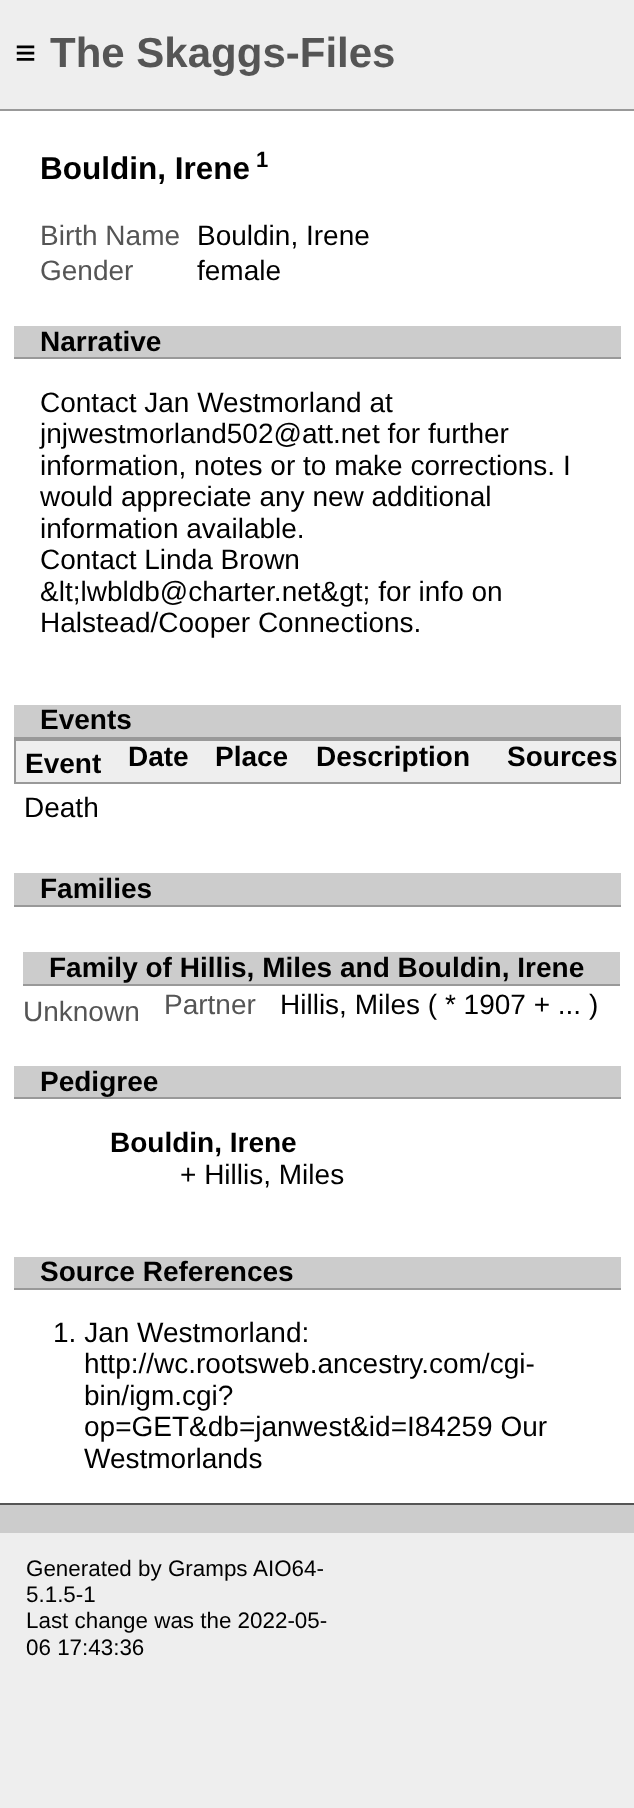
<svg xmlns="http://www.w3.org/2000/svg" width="634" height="1808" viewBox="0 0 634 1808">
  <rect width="100%" height="100%" fill="rgb(238,238,238)"/>
  <text x="15" y="65" font-family="Liberation Sans" font-size="36" fill="rgb(0,0,0)">≡</text>
  <text x="50" y="67" font-family="Liberation Sans" font-size="42" font-weight="bold" fill="rgb(85,85,85)">The Skaggs-Files</text>
  <rect x="0" y="111" width="634" height="1392" fill="rgb(255,255,255)"/>
  <rect x="0" y="109" width="634" height="2" fill="rgb(153,153,153)"/>
  <text x="40" y="179" font-family="Liberation Sans" font-size="31.5" font-weight="bold" fill="rgb(0,0,0)">Bouldin, Irene</text>
  <text x="256" y="167" font-family="Liberation Sans" font-size="22" font-weight="bold" fill="rgb(0,0,0)">1</text>
  <text x="40" y="245" font-family="Liberation Sans" font-size="28" fill="rgb(85,85,85)">Birth Name</text>
  <text x="197" y="245" font-family="Liberation Sans" font-size="28" fill="rgb(0,0,0)">Bouldin, Irene</text>
  <text x="40" y="280" font-family="Liberation Sans" font-size="28" fill="rgb(85,85,85)">Gender</text>
  <text x="197" y="280" font-family="Liberation Sans" font-size="28" fill="rgb(0,0,0)">female</text>
  <rect x="14" y="326" width="607" height="31" fill="rgb(204,204,204)"/>
  <rect x="14" y="357" width="607" height="2" fill="rgb(153,153,153)"/>
  <text x="40" y="351" font-family="Liberation Sans" font-size="28" font-weight="bold" fill="rgb(0,0,0)">Narrative</text>
  <g font-family="Liberation Sans" font-size="28" fill="rgb(0,0,0)">
    <text>
      <tspan x="40" y="412">Contact Jan Westmorland at</tspan>
      <tspan x="40" y="443">jnjwestmorland502@att.net for further</tspan>
      <tspan x="40" y="475">information, notes or to make corrections. I</tspan>
      <tspan x="40" y="506">would appreciate any new additional</tspan>
      <tspan x="40" y="538">information available.</tspan>
      <tspan x="40" y="569">Contact Linda Brown</tspan>
      <tspan x="40" y="601">&amp;lt;lwbldb@charter.net&amp;gt; for info on</tspan>
      <tspan x="40" y="632">Halstead/Cooper Connections.</tspan>
    </text>
  </g>
  <rect x="14" y="705" width="607" height="32" fill="rgb(204,204,204)"/>
  <rect x="14" y="737" width="607" height="2" fill="rgb(153,153,153)"/>
  <text x="40" y="729" font-family="Liberation Sans" font-size="28" font-weight="bold" fill="rgb(0,0,0)">Events</text>
  <rect x="16" y="741" width="604" height="41" fill="rgb(238,238,238)"/>
  <rect x="14" y="739" width="607" height="2" fill="rgb(153,153,153)"/>
  <rect x="620" y="739" width="1" height="45" fill="rgb(153,153,153)"/>
  <rect x="14" y="782" width="607" height="2" fill="rgb(153,153,153)"/>
  <rect x="14" y="739" width="2" height="45" fill="rgb(153,153,153)"/>
  <g font-family="Liberation Sans" font-size="28" font-weight="bold" fill="rgb(0,0,0)">
    <text x="25" y="773">Event</text>
    <text x="128" y="766">Date</text>
    <text x="215" y="766">Place</text>
    <text x="316" y="766">Description</text>
    <text x="507" y="766">Sources</text>
  </g>
  <text x="24" y="817" font-family="Liberation Sans" font-size="28" fill="rgb(0,0,0)">Death</text>
  <rect x="14" y="873" width="607" height="32" fill="rgb(204,204,204)"/>
  <rect x="14" y="905" width="607" height="2" fill="rgb(153,153,153)"/>
  <text x="40" y="898" font-family="Liberation Sans" font-size="28" font-weight="bold" fill="rgb(0,0,0)">Families</text>
  <rect x="23" y="952" width="597" height="32" fill="rgb(204,204,204)"/>
  <rect x="23" y="984" width="597" height="2" fill="rgb(153,153,153)"/>
  <text x="49" y="977" font-family="Liberation Sans" font-size="28" font-weight="bold" fill="rgb(0,0,0)">Family of Hillis, Miles and Bouldin, Irene</text>
  <g font-family="Liberation Sans" font-size="28" fill="rgb(85,85,85)">
    <text x="23" y="1021">Unknown</text>
    <text x="164" y="1014">Partner</text>
  </g>
  <text x="280" y="1014" font-family="Liberation Sans" font-size="28" fill="rgb(0,0,0)">Hillis, Miles ( * 1907 + ... )</text>
  <rect x="14" y="1066" width="607" height="31" fill="rgb(204,204,204)"/>
  <rect x="14" y="1097" width="607" height="2" fill="rgb(153,153,153)"/>
  <g font-family="Liberation Sans" font-size="28" font-weight="bold" fill="rgb(0,0,0)">
    <text x="40" y="1091">Pedigree</text>
    <text x="110" y="1152">Bouldin, Irene</text>
  </g>
  <text x="180" y="1184" font-family="Liberation Sans" font-size="28" fill="rgb(0,0,0)">+ Hillis, Miles</text>
  <rect x="14" y="1257" width="607" height="31" fill="rgb(204,204,204)"/>
  <rect x="14" y="1288" width="607" height="2" fill="rgb(153,153,153)"/>
  <text x="40" y="1281" font-family="Liberation Sans" font-size="28" font-weight="bold" fill="rgb(0,0,0)">Source References</text>
  <g font-family="Liberation Sans" font-size="28" fill="rgb(0,0,0)">
    <text x="53" y="1342">1. Jan Westmorland:</text>
    <text>
      <tspan x="84" y="1373">http://wc.rootsweb.ancestry.com/cgi-</tspan>
      <tspan x="84" y="1405">bin/igm.cgi?</tspan>
      <tspan x="84" y="1436">op=GET&amp;db=janwest&amp;id=I84259 Our</tspan>
      <tspan x="84" y="1468">Westmorlands</tspan>
    </text>
  </g>
  <rect x="0" y="1505" width="634" height="28" fill="rgb(204,204,204)"/>
  <rect x="0" y="1503" width="634" height="2" fill="rgb(85,85,85)"/>
  <g font-family="Liberation Sans" font-size="22.4" fill="rgb(0,0,0)">
    <text x="26" y="1576">Generated by Gramps</text>
    <text x="253" y="1576">AIO64-</text>
    <text>
      <tspan x="26" y="1602">5.1.5-1</tspan>
      <tspan x="26" y="1628">Last change was the 2022-05-</tspan>
      <tspan x="26" y="1655">06 17:43:36</tspan>
    </text>
  </g>
</svg>
